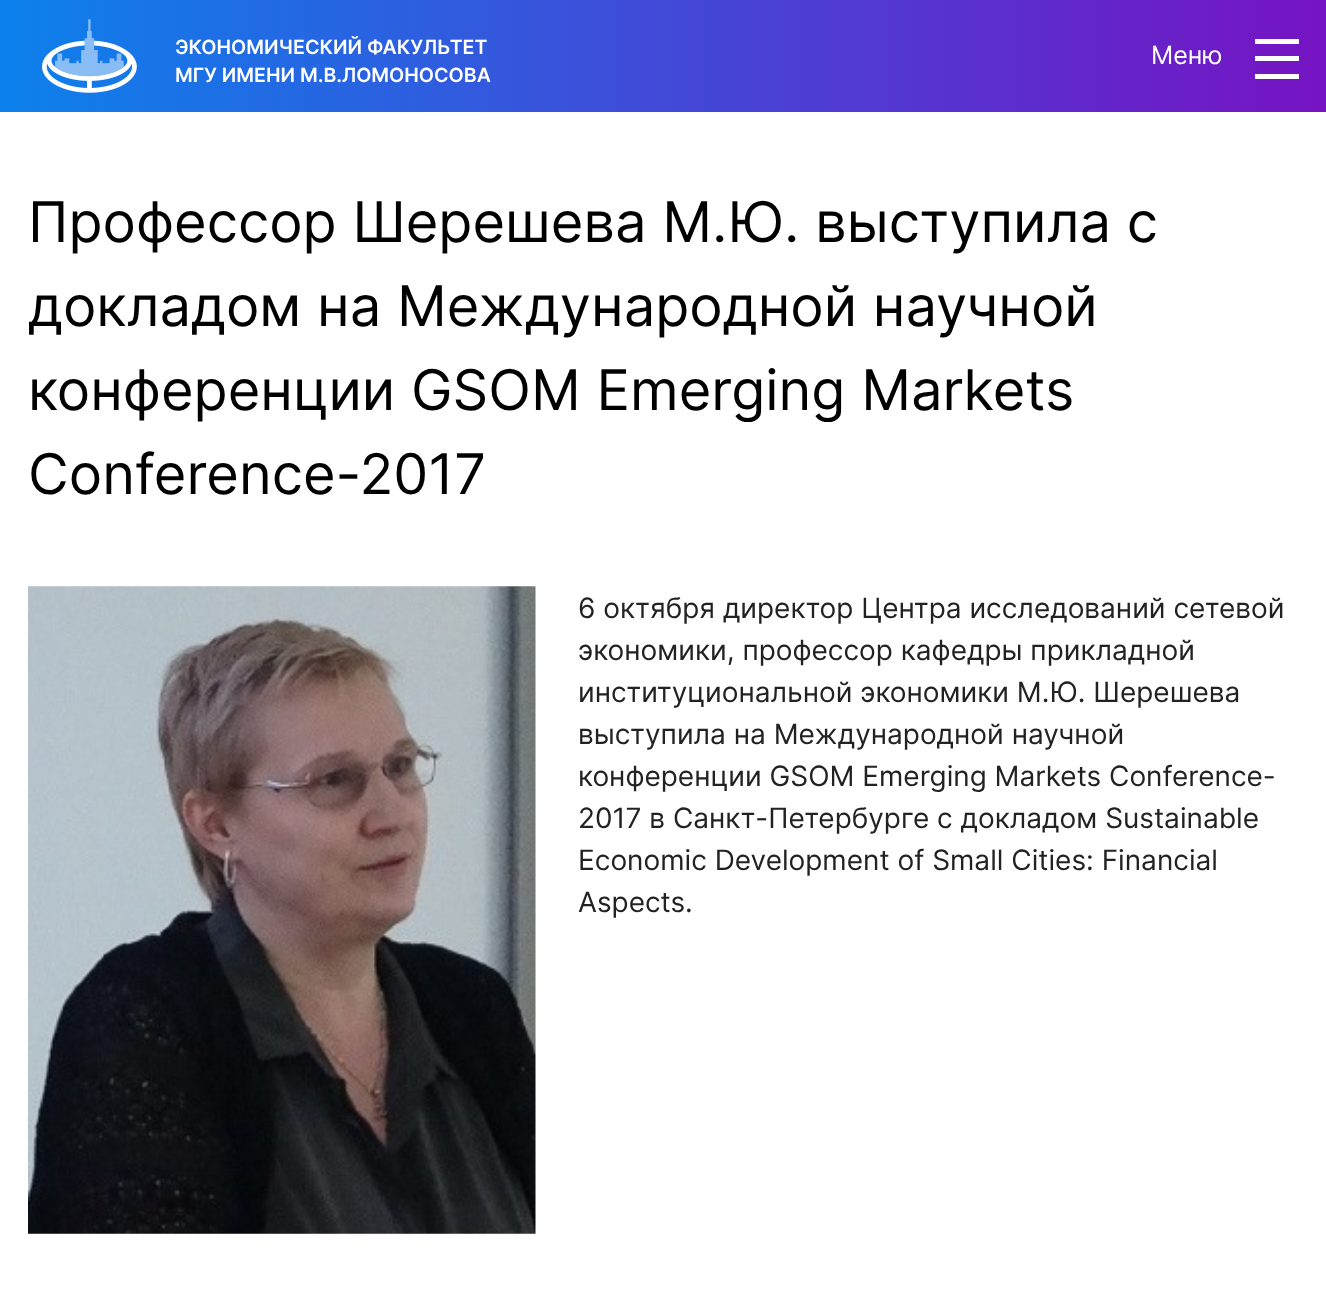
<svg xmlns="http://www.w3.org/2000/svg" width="1326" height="1306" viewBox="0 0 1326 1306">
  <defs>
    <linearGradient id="g1" gradientUnits="userSpaceOnUse" x1="0" y1="56" x2="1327" y2="56"><stop offset="0" stop-color="rgb(12,129,236)"/><stop offset="1" stop-color="rgb(118,19,195)"/></linearGradient>
  </defs>
  <rect width="100%" height="100%" fill="rgb(255,255,255)"/>
  <rect x="0" y="0" width="1326" height="112" fill="url(#g1)"/>
  <image x="42" y="19" width="95" height="74" href="pic1.png"/>
  <g font-family="Inter" font-size="19.6" font-weight="600" fill="rgb(255,255,255)">
    <text>
      <tspan x="175" y="54">ЭКОНОМИЧЕСКИЙ ФАКУЛЬТЕТ</tspan>
      <tspan x="175" y="82">МГУ ИМЕНИ М.В.ЛОМОНОСОВА</tspan>
    </text>
  </g>
  <text x="1151" y="64" font-family="Inter" font-size="25" fill="rgb(255,255,255)">Меню</text>
  <rect x="1255" y="39" width="44" height="5" fill="rgb(255,255,255)"/>
  <rect x="1255" y="56" width="44" height="5" fill="rgb(255,255,255)"/>
  <rect x="1255" y="74" width="44" height="5" fill="rgb(255,255,255)"/>
  <g font-family="Inter" font-size="56" fill="rgb(0,0,0)">
    <text>
      <tspan x="28" y="242">Профессор Шерешева М.Ю. выступила с</tspan>
      <tspan x="28" y="326">докладом на Международной научной</tspan>
      <tspan x="28" y="410">конференции GSOM Emerging Markets</tspan>
      <tspan x="28" y="494">Conference-2017</tspan>
    </text>
  </g>
  <image x="28" y="586" width="508" height="648" href="pic2.png"/>
  <g font-family="Inter" font-size="28" fill="rgb(34,34,34)">
    <text>
      <tspan x="578" y="618">6 октября директор Центра исследований сетевой</tspan>
      <tspan x="578" y="660">экономики, профессор кафедры прикладной</tspan>
      <tspan x="578" y="702">институциональной экономики М.Ю. Шерешева</tspan>
      <tspan x="578" y="744">выступила на Международной научной</tspan>
      <tspan x="578" y="786">конференции GSOM Emerging Markets Conference-</tspan>
      <tspan x="578" y="828">2017 в Санкт-Петербурге с докладом Sustainable</tspan>
      <tspan x="578" y="870">Economic Development of Small Cities: Financial</tspan>
      <tspan x="578" y="912">Aspects.</tspan>
    </text>
  </g>
</svg>
